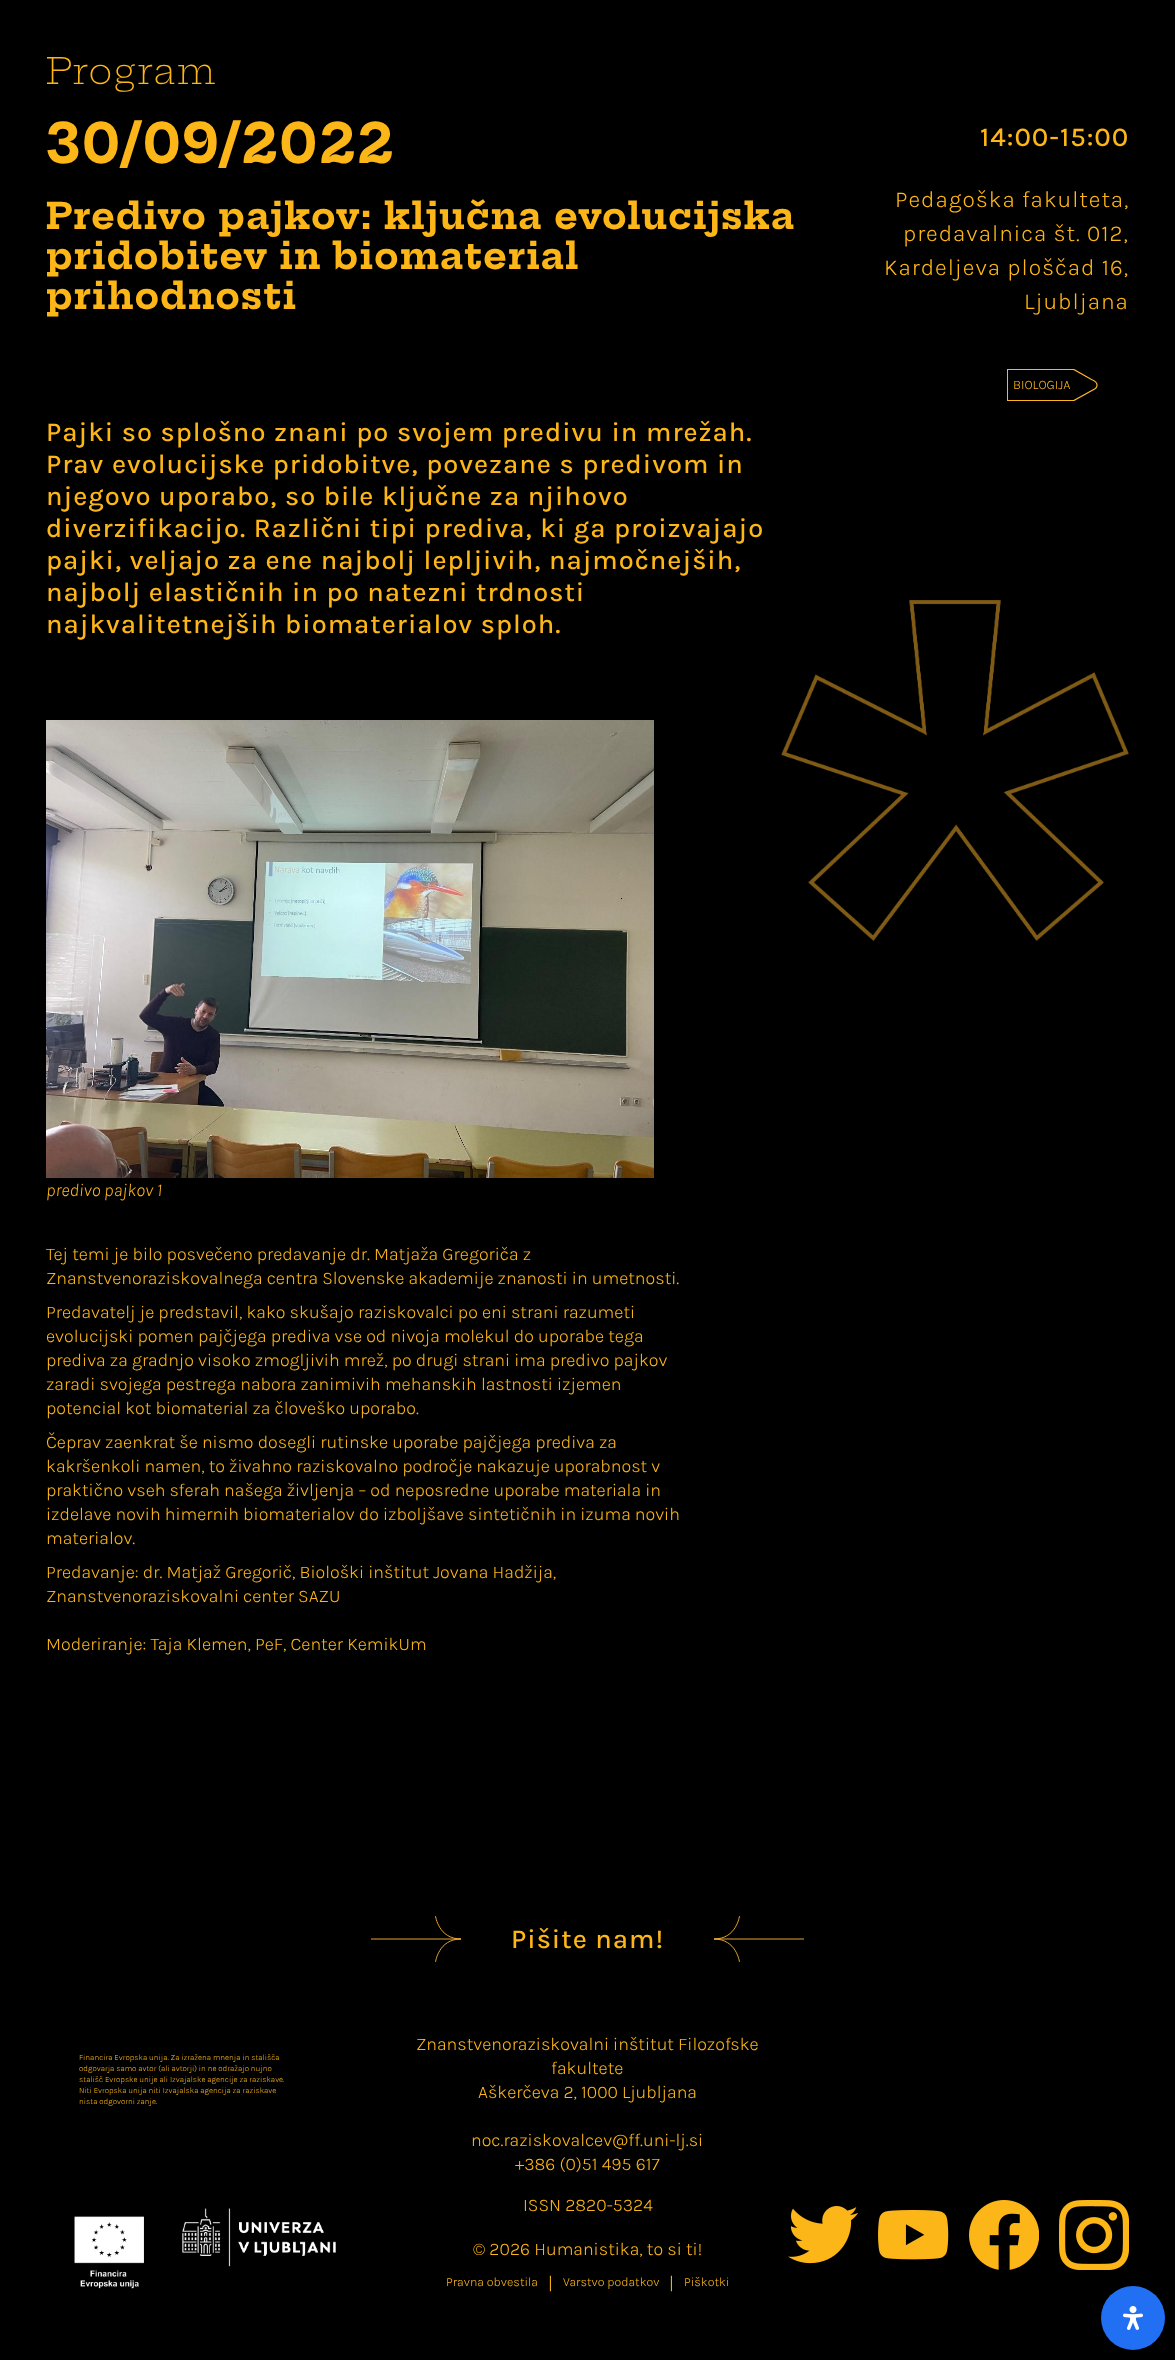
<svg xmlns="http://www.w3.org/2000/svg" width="1175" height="2360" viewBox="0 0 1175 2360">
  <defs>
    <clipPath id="clip1"><rect x="1073" y="369" width="25" height="32"/></clipPath>
  </defs>
  <rect width="100%" height="100%" fill="rgb(0,0,0)"/>
  <text x="46" y="84" font-family="Hepta Slab" font-size="36" font-weight="300" letter-spacing="1" fill="rgb(253,182,24)">Program</text>
  <text x="46" y="163" font-family="Hepta Slab" font-size="54" font-weight="bold" letter-spacing="1" fill="rgb(253,182,24)">30/09/2022</text>
  <g font-family="Hepta Slab" font-size="36" font-weight="bold" letter-spacing="1" fill="rgb(253,182,24)">
    <text>
      <tspan x="46" y="229">Predivo pajkov: ključna evolucijska</tspan>
      <tspan x="46" y="269">pridobitev in biomaterial</tspan>
      <tspan x="46" y="309">prihodnosti</tspan>
    </text>
  </g>
  <g font-family="Karla" font-size="27" font-weight="500" letter-spacing="1" fill="rgb(253,182,24)">
    <text>
      <tspan x="46" y="441">Pajki so splošno znani po svojem predivu in mrežah.</tspan>
      <tspan x="46" y="473">Prav evolucijske pridobitve, povezane s predivom in</tspan>
      <tspan x="46" y="505">njegovo uporabo, so bile ključne za njihovo</tspan>
      <tspan x="46" y="537">diverzifikacijo. Različni tipi prediva, ki ga proizvajajo</tspan>
      <tspan x="46" y="569">pajki, veljajo za ene najbolj lepljivih, najmočnejših,</tspan>
      <tspan x="46" y="601">najbolj elastičnih in po natezni trdnosti</tspan>
      <tspan x="46" y="633">najkvalitetnejših biomaterialov sploh.</tspan>
    </text>
    <text x="980" y="146">14:00-15:00</text>
  </g>
  <g font-family="Karla" font-size="23" font-weight="300" letter-spacing="1" fill="rgb(253,182,24)">
    <text x="895" y="207">Pedagoška fakulteta,</text>
    <text x="903" y="241">predavalnica št. 012,</text>
    <text x="884" y="275">Kardeljeva ploščad 16,</text>
    <text x="1024" y="309">Ljubljana</text>
  </g>
  <rect x="1007" y="369" width="67" height="1" fill="rgb(253,182,24)"/>
  <rect x="1007" y="400" width="67" height="1" fill="rgb(253,182,24)"/>
  <rect x="1007" y="369" width="1" height="32" fill="rgb(253,182,24)"/>
  <text x="1013" y="389" font-family="Karla" font-size="13" font-weight="300" fill="rgb(253,182,24)">BIOLOGIJA</text>
  <g clip-path="url(#clip1)">
    <path d="M1073 401L1095.5 388.5C1096.5 387.5 1097 386.5 1097 385.5C1097.5 382 1094 380.5 1091.5 379.5L1073 369" fill="none" stroke="rgb(253,182,43)" stroke-width="1.2"/>
  </g>
  <image x="781" y="600" width="348" height="341" href="pic1.png"/>
  <image x="46" y="720" width="608" height="458" href="pic2.png"/>
  <text x="46" y="1196" font-family="Karla" font-size="18" font-weight="300" font-style="italic" fill="rgb(253,182,24)">predivo pajkov 1</text>
  <g font-family="Karla" font-size="18" font-weight="300" fill="rgb(253,182,24)">
    <text>
      <tspan x="46" y="1260">Tej temi je bilo posvečeno predavanje dr. Matjaža Gregoriča z</tspan>
      <tspan x="46" y="1284">Znanstvenoraziskovalnega centra Slovenske akademije znanosti in umetnosti.</tspan>
      <tspan x="46" y="1318">Predavatelj je predstavil, kako skušajo raziskovalci po eni strani razumeti</tspan>
      <tspan x="46" y="1342">evolucijski pomen pajčjega prediva vse od nivoja molekul do uporabe tega</tspan>
      <tspan x="46" y="1366">prediva za gradnjo visoko zmogljivih mrež, po drugi strani ima predivo pajkov</tspan>
      <tspan x="46" y="1390">zaradi svojega pestrega nabora zanimivih mehanskih lastnosti izjemen</tspan>
      <tspan x="46" y="1414">potencial kot biomaterial za človeško uporabo.</tspan>
      <tspan x="46" y="1448">Čeprav zaenkrat še nismo dosegli rutinske uporabe pajčjega prediva za</tspan>
      <tspan x="46" y="1472">kakršenkoli namen, to živahno raziskovalno področje nakazuje uporabnost v</tspan>
      <tspan x="46" y="1496">praktično vseh sferah našega življenja – od neposredne uporabe materiala in</tspan>
      <tspan x="46" y="1520">izdelave novih himernih biomaterialov do izboljšave sintetičnih in izuma novih</tspan>
      <tspan x="46" y="1544">materialov.</tspan>
      <tspan x="46" y="1578">Predavanje: dr. Matjaž Gregorič, Biološki inštitut Jovana Hadžija,</tspan>
      <tspan x="46" y="1602">Znanstvenoraziskovalni center SAZU</tspan>
    </text>
    <text x="46" y="1650">Moderiranje: Taja Klemen, PeF, Center KemikUm</text>
  </g>
  <path d="M435.5 1916C435.5 1916 438.5 1939 461 1939M461 1939C438.5 1939 435.5 1962 435.5 1962" fill="none" stroke="rgb(251,181,51)" stroke-width="0.9"/>
  <path d="M371 1939H461" fill="none" stroke="rgb(251,181,51)" stroke-width="0.9"/>
  <text x="511" y="1948" font-family="Karla" font-size="27" font-weight="500" letter-spacing="1" fill="rgb(253,182,24)">Pišite nam!</text>
  <path d="M739.5 1962C739.5 1962 736.5 1939 714 1939M714 1939C736.5 1939 739.5 1916 739.5 1916" fill="none" stroke="rgb(251,181,51)" stroke-width="0.9"/>
  <path d="M804 1939H714" fill="none" stroke="rgb(251,181,51)" stroke-width="0.9"/>
  <g font-family="Karla" font-size="8" font-weight="300" fill="rgb(253,182,24)">
    <text>
      <tspan x="79" y="2060">Financira Evropska unija. Za izražena mnenja in stališča</tspan>
      <tspan x="79" y="2071">odgovarja samo avtor (ali avtorji) in ne odražajo nujno</tspan>
      <tspan x="79" y="2082">stališč Evropske unije ali Izvajalske agencije za raziskave.</tspan>
      <tspan x="79" y="2093">Niti Evropska unija niti Izvajalska agencija za raziskave</tspan>
      <tspan x="79" y="2104">nista odgovorni zanje.</tspan>
    </text>
  </g>
  <image x="74" y="2216" width="70" height="73" href="pic3.png"/>
  <image x="182" y="2208" width="154" height="59" href="pic4.png"/>
  <g font-family="Karla" font-size="18" font-weight="300" fill="rgb(253,182,24)">
    <text x="416" y="2050">Znanstvenoraziskovalni inštitut Filozofske</text>
    <text x="551" y="2074">fakultete</text>
    <text x="478" y="2098">Aškerčeva 2, 1000 Ljubljana</text>
    <text x="471" y="2146">noc.raziskovalcev@ff.uni-lj.si</text>
    <text x="515" y="2170">+386 (0)51 495 617</text>
    <text x="523" y="2211">ISSN 2820-5324</text>
    <text x="473" y="2255">© 2026 Humanistika, to si ti!</text>
  </g>
  <text x="446" y="2286" font-family="Karla" font-size="12.5" font-weight="300" fill="rgb(253,182,24)">Pravna obvestila</text>
  <text x="548" y="2289" font-family="Karla" font-size="18" font-weight="300" fill="rgb(253,182,24)">|</text>
  <text x="563" y="2286" font-family="Karla" font-size="12.5" font-weight="300" fill="rgb(253,182,24)">Varstvo podatkov</text>
  <text x="669" y="2289" font-family="Karla" font-size="18" font-weight="300" fill="rgb(253,182,24)">|</text>
  <text x="684" y="2286" font-family="Karla" font-size="12.5" font-weight="300" fill="rgb(253,182,24)">Piškotki</text>
  <image x="788" y="2206" width="70" height="58" href="pic5.png"/>
  <image x="878" y="2210" width="71" height="50" href="pic6.png"/>
  <image x="969" y="2200" width="70" height="70" href="pic7.png"/>
  <image x="1059" y="2200" width="70" height="70" href="pic8.png"/>
  <circle cx="1133" cy="2318" r="32" fill="rgb(33,111,243)"/>
  <image x="1123" y="2306" width="20" height="24" href="pic9.png"/>
</svg>
